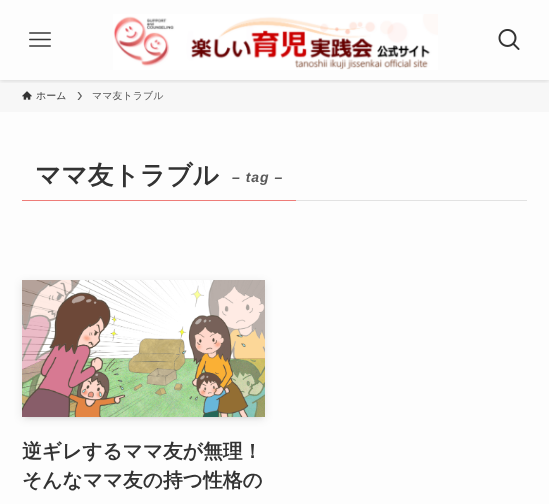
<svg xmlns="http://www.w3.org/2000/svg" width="549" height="504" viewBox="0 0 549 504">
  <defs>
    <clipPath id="clip1"><rect x="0" y="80" width="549" height="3"/></clipPath>
  </defs>
  <rect width="100%" height="100%" fill="rgb(253,253,253)"/>
  <rect x="0" y="80" width="549" height="32" fill="rgb(247,247,247)"/>
  <g clip-path="url(#clip1)">
    <rect x="0" y="1" width="549" height="80" fill="rgba(0,0,0,0.12)" filter="blur(2px)"/>
  </g>
  <image x="29" y="32" width="22" height="15" href="pic1.png"/>
  <image x="113" y="14" width="325" height="56" href="pic2.png"/>
  <image x="498" y="29" width="22" height="21" href="pic3.png"/>
  <image x="22" y="91" width="10" height="9" href="pic4.png"/>
  <text x="36" y="99" font-family="WenQuanYi Zen Hei" font-size="10" font-weight="500" fill="rgb(51,51,51)">ホーム</text>
  <path d="M79 92H77.5L80.5 96L77.5 100H79L82 96Z" fill="rgb(90,90,90)"/>
  <text x="92" y="99" font-family="WenQuanYi Zen Hei" font-size="10" font-weight="500" fill="rgb(90,90,90)">ママ友トラブル</text>
  <rect x="296" y="200" width="231" height="1" fill="rgb(226,226,226)"/>
  <rect x="22" y="200" width="274" height="1" fill="rgb(238,124,120)"/>
  <text x="35" y="184" font-family="WenQuanYi Zen Hei" font-size="25.75" font-weight="bold" fill="rgb(51,51,51)">ママ友トラブル</text>
  <text x="232" y="182" font-family="Liberation Sans" font-size="14" font-weight="bold" font-style="italic" letter-spacing="1" fill="rgb(90,90,90)">– tag –</text>
  <rect x="26" y="288" width="235" height="129" fill="rgba(0,0,0,0.1)" filter="blur(2px)"/>
  <rect x="22" y="282" width="243" height="137" fill="rgba(0,0,0,0.1)" filter="blur(4px)"/>
  <image x="22" y="280" width="243" height="137" href="pic5.png"/>
  <g font-family="WenQuanYi Zen Hei" font-size="19.75" font-weight="bold" fill="rgb(51,51,51)">
    <text>
      <tspan x="22" y="458">逆ギレするママ友が無理！</tspan>
      <tspan x="22" y="487">そんなママ友の持つ性格の</tspan>
    </text>
  </g>
</svg>
